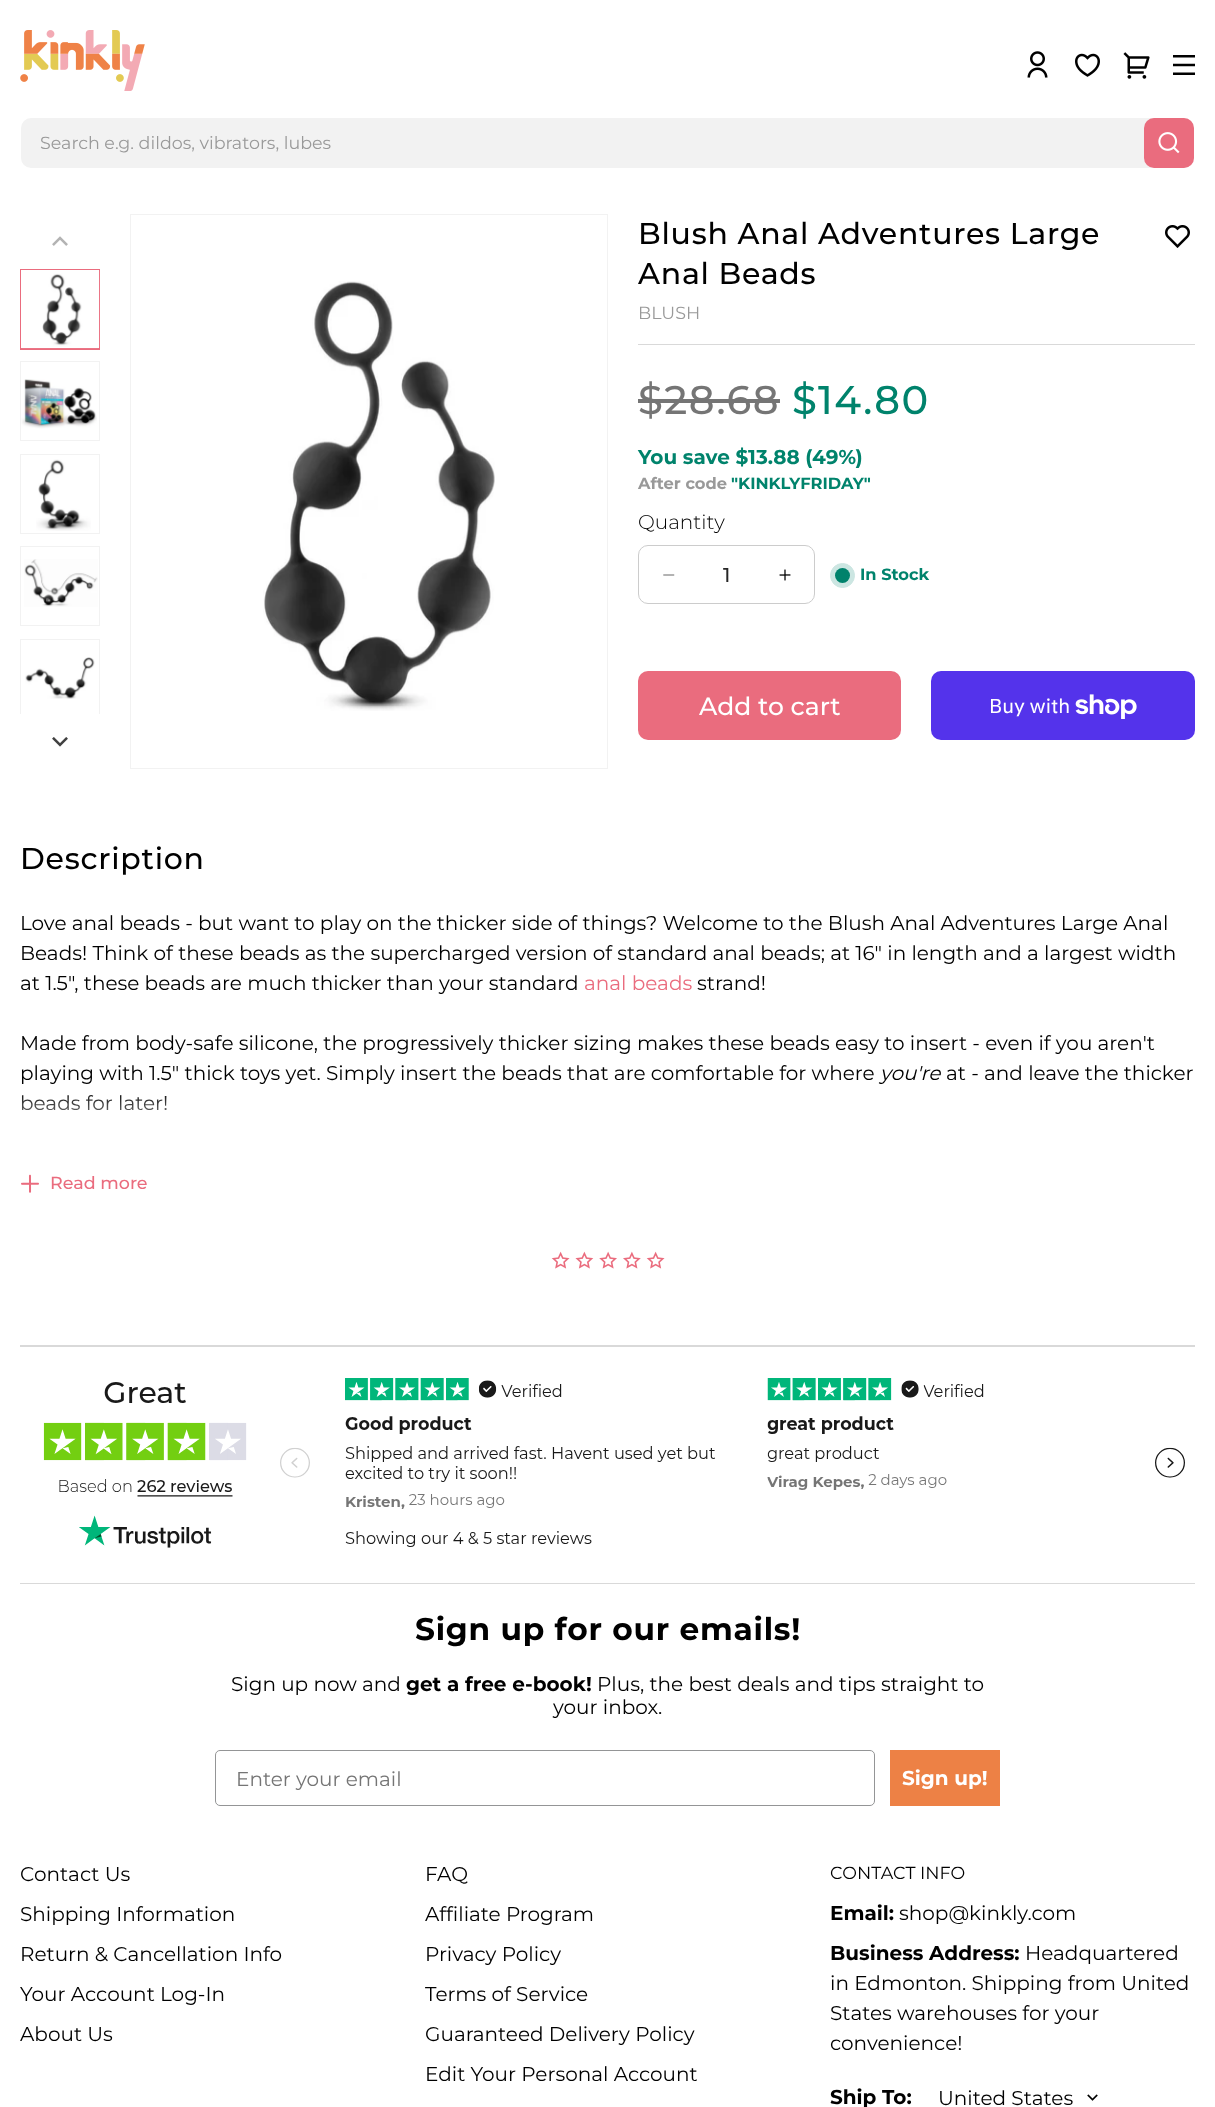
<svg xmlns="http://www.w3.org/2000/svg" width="1215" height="2107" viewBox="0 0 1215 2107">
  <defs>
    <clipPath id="clip1"><rect x="20" y="269" width="80" height="445"/></clipPath>
    <linearGradient id="g1" gradientUnits="userSpaceOnUse" x1="608" y1="1089" x2="608" y2="1149"><stop offset="0" stop-color="rgb(255,255,255)" stop-opacity="0"/><stop offset="1" stop-color="rgb(255,255,255)"/></linearGradient>
  </defs>
  <rect width="100%" height="100%" fill="rgb(255,255,255)"/>
  <image x="20" y="30" width="125" height="61" href="pic1.png"/>
  <image x="1027" y="51" width="21" height="27" href="pic2.png"/>
  <image x="1075" y="53" width="25" height="24" href="pic3.png"/>
  <image x="1123" y="52" width="27" height="27" href="pic4.png"/>
  <image x="1173" y="55" width="22" height="20" href="pic5.png"/>
  <rect x="21" y="118" width="1173" height="50" rx="10" fill="rgb(242,242,242)"/>
  <text x="40" y="149" font-family="Montserrat" font-size="17.5" fill="rgb(153,153,153)">Search e.g. dildos, vibrators, lubes</text>
  <rect x="1144" y="118" width="50" height="50" rx="10" fill="rgb(234,108,126)"/>
  <image x="1158" y="132" width="22" height="22" href="pic6.png"/>
  <image x="52" y="236" width="16" height="10" href="pic7.png"/>
  <g clip-path="url(#clip1)">
    <rect x="19.5" y="268.5" width="81" height="81" fill="none" stroke="rgb(234,108,126)"/>
  </g>
  <rect x="20.5" y="269.5" width="79" height="79" fill="none" stroke="rgb(234,108,126)"/>
  <image x="21" y="270" width="79" height="79" href="pic8.png"/>
  <rect x="20.5" y="361.5" width="79" height="79" fill="none" stroke="rgb(242,242,242)"/>
  <image x="21" y="379" width="76" height="50" href="pic9.png"/>
  <rect x="20.5" y="454.5" width="79" height="79" fill="none" stroke="rgb(242,242,242)"/>
  <image x="36" y="459" width="55" height="72" href="pic10.png"/>
  <rect x="20.5" y="546.5" width="79" height="79" fill="none" stroke="rgb(242,242,242)"/>
  <image x="24" y="559" width="74" height="48" href="pic11.png"/>
  <g clip-path="url(#clip1)">
    <rect x="20.5" y="639.5" width="79" height="79" fill="none" stroke="rgb(242,242,242)"/>
  </g>
  <image x="25" y="657" width="70" height="42" href="pic12.png"/>
  <image x="52" y="737" width="16" height="10" href="pic13.png"/>
  <rect x="130.5" y="214.5" width="477" height="554" fill="none" stroke="rgb(242,242,242)"/>
  <image x="263" y="281" width="232" height="430" href="pic14.png"/>
  <g font-family="Montserrat" font-size="30" font-weight="500" letter-spacing="0.75" fill="rgb(0,0,0)">
    <text>
      <tspan x="638" y="244">Blush Anal Adventures Large</tspan>
      <tspan x="638" y="284">Anal Beads</tspan>
    </text>
  </g>
  <image x="1165" y="225" width="25" height="23" href="pic15.png"/>
  <text x="638" y="319" font-family="Montserrat" font-size="17.5" fill="rgb(153,153,153)">BLUSH</text>
  <rect x="638" y="344" width="557" height="1" fill="rgb(217,217,217)"/>
  <text x="638" y="414" font-family="Montserrat" font-size="40" font-weight="500" letter-spacing="1.5" fill="rgb(117,117,117)">$28.68</text>
  <rect x="638" y="399" width="142" height="4" fill="rgb(117,117,117)"/>
  <text x="792" y="414" font-family="Montserrat" font-size="40" font-weight="500" letter-spacing="1.5" fill="rgb(0,131,108)">$14.80</text>
  <text x="638" y="464" font-family="Montserrat" font-size="20" font-weight="bold" fill="rgb(0,131,108)">You save $13.88 (49%)</text>
  <text x="638" y="489" font-family="Montserrat" font-size="16.25" font-weight="bold" fill="rgb(153,153,153)">After code</text>
  <text x="731" y="489" font-family="Montserrat" font-size="16.25" font-weight="bold" fill="rgb(0,131,108)">"KINKLYFRIDAY"</text>
  <text x="638" y="529" font-family="Montserrat" font-size="20" font-weight="300" fill="rgb(0,0,0)">Quantity</text>
  <rect x="638.5" y="545.5" width="176" height="58" rx="9.5" fill="none" stroke="rgb(204,204,204)"/>
  <image x="663" y="574" width="12" height="2" href="pic16.png"/>
  <text x="723" y="582" font-family="Montserrat" font-size="20" font-weight="500" fill="rgb(38,38,38)">1</text>
  <image x="779" y="569" width="12" height="12" href="pic17.png"/>
  <circle cx="842.5" cy="575.5" r="7.5" fill="rgb(0,131,108)"/>
  <circle cx="842.5" cy="575.5" r="12" fill="rgba(0,131,108,0.2)" stroke="rgb(204,230,226)"/>
  <text x="860" y="580" font-family="Montserrat" font-size="16.25" font-weight="bold" fill="rgb(0,131,108)">In Stock</text>
  <rect x="638" y="671" width="263" height="69" rx="10" fill="rgb(234,108,126)"/>
  <text x="699" y="715" font-family="Montserrat" font-size="25" font-weight="500" fill="rgb(255,255,255)">Add to cart</text>
  <rect x="931" y="671" width="264" height="69" rx="10" fill="rgb(84,51,235)"/>
  <text x="989" y="713" font-family="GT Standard" font-size="20" fill="rgb(255,255,255)">Buy with</text>
  <image x="1075" y="694" width="62" height="25" href="pic18.png"/>
  <text x="20" y="869" font-family="Montserrat" font-size="30" font-weight="500" letter-spacing="0.75" fill="rgb(0,0,0)">Description</text>
  <g font-family="Montserrat" font-size="20" fill="rgb(0,0,0)">
    <text>
      <tspan x="20" y="930">Love anal beads - but want to play on the thicker side of things? Welcome to the Blush Anal Adventures Large Anal</tspan>
      <tspan x="20" y="960">Beads! Think of these beads as the supercharged version of standard anal beads; at 16" in length and a largest width</tspan>
      <tspan x="20" y="990">at 1.5", these beads are much thicker than your standard</tspan>
    </text>
  </g>
  <text x="584" y="990" font-family="Montserrat" font-size="20" fill="rgb(234,108,126)">anal beads</text>
  <g font-family="Montserrat" font-size="20" fill="rgb(0,0,0)">
    <text x="697" y="990">strand!</text>
    <text>
      <tspan x="20" y="1050">Made from body-safe silicone, the progressively thicker sizing makes these beads easy to insert - even if you aren't</tspan>
      <tspan x="20" y="1080">playing with 1.5" thick toys yet. Simply insert the beads that are comfortable for where</tspan>
    </text>
  </g>
  <text x="880" y="1080" font-family="Montserrat" font-size="20" font-style="italic" fill="rgb(0,0,0)">you're</text>
  <g font-family="Montserrat" font-size="20" fill="rgb(0,0,0)">
    <text x="946" y="1080">at - and leave the thicker</text>
    <text x="20" y="1110">beads for later!</text>
  </g>
  <rect x="22" y="1095" width="145" height="16" fill="url(#g1)"/>
  <image x="21" y="1174" width="18" height="19" href="pic19.png"/>
  <text x="50" y="1189" font-family="Montserrat" font-size="17.5" font-weight="500" fill="rgb(234,108,126)">Read more</text>
  <image x="551" y="1251" width="19" height="18" href="pic20.png"/>
  <image x="575" y="1251" width="19" height="18" href="pic21.png"/>
  <image x="599" y="1251" width="18" height="18" href="pic22.png"/>
  <image x="623" y="1251" width="18" height="18" href="pic23.png"/>
  <image x="646" y="1251" width="19" height="18" href="pic20.png"/>
  <rect x="20" y="1345" width="1175" height="2" fill="rgb(217,217,217)"/>
  <image x="43" y="1378" width="1142" height="170" href="pic24.png"/>
  <rect x="20" y="1583" width="1175" height="1" fill="rgb(217,217,217)"/>
  <text x="415" y="1640" font-family="Montserrat" font-size="31.25" font-weight="bold" letter-spacing="0.75" fill="rgb(0,0,0)">Sign up for our emails!</text>
  <text x="231" y="1691" font-family="Montserrat" font-size="20" fill="rgb(0,0,0)">Sign up now and</text>
  <text x="406" y="1691" font-family="Montserrat" font-size="20" font-weight="bold" fill="rgb(0,0,0)">get a free e-book!</text>
  <g font-family="Montserrat" font-size="20" fill="rgb(0,0,0)">
    <text x="597" y="1691">Plus, the best deals and tips</text>
    <text x="881" y="1691">straight to</text>
    <text x="553" y="1714">your inbox.</text>
  </g>
  <rect x="215.5" y="1750.5" width="659" height="55" rx="4.5" fill="none" stroke="rgb(148,149,150)"/>
  <text x="236" y="1786" font-family="Montserrat" font-size="20" fill="rgb(117,117,117)">Enter your email</text>
  <rect x="890" y="1750" width="110" height="56" fill="rgb(237,129,69)"/>
  <text x="902" y="1785" font-family="Montserrat" font-size="20" font-weight="bold" fill="rgb(255,255,255)">Sign up!</text>
  <g font-family="Montserrat" font-size="20" fill="rgb(0,0,0)">
    <text x="20" y="1881">Contact Us</text>
    <text x="20" y="1921">Shipping Information</text>
    <text x="20" y="1961">Return &amp; Cancellation Info</text>
    <text x="20" y="2001">Your Account Log-In</text>
    <text x="20" y="2041">About Us</text>
    <text x="425" y="1881">FAQ</text>
    <text x="425" y="1921">Affiliate Program</text>
    <text x="425" y="1961">Privacy Policy</text>
    <text x="425" y="2001">Terms of Service</text>
    <text x="425" y="2041">Guaranteed Delivery Policy</text>
    <text x="425" y="2081">Edit Your Personal Account</text>
  </g>
  <text x="830" y="1879" font-family="Montserrat" font-size="17.5" fill="rgb(0,0,0)">CONTACT INFO</text>
  <text x="830" y="1920" font-family="Montserrat" font-size="20" font-weight="bold" fill="rgb(0,0,0)">Email:</text>
  <text x="899" y="1920" font-family="Montserrat" font-size="20" fill="rgb(0,0,0)">shop@kinkly.com</text>
  <text x="830" y="1960" font-family="Montserrat" font-size="20" font-weight="bold" fill="rgb(0,0,0)">Business Address:</text>
  <g font-family="Montserrat" font-size="20" fill="rgb(0,0,0)">
    <text x="1025" y="1960">Headquartered</text>
    <text>
      <tspan x="830" y="1990">in Edmonton. Shipping from United</tspan>
      <tspan x="830" y="2020">States warehouses for your</tspan>
      <tspan x="830" y="2050">convenience!</tspan>
    </text>
  </g>
  <text x="830" y="2104" font-family="Montserrat" font-size="20" font-weight="bold" fill="rgb(0,0,0)">Ship To:</text>
  <text x="938" y="2105" font-family="Montserrat" font-size="20" fill="rgb(0,0,0)">United States</text>
  <image x="1087" y="2094" width="11" height="7" href="pic25.png"/>
</svg>
